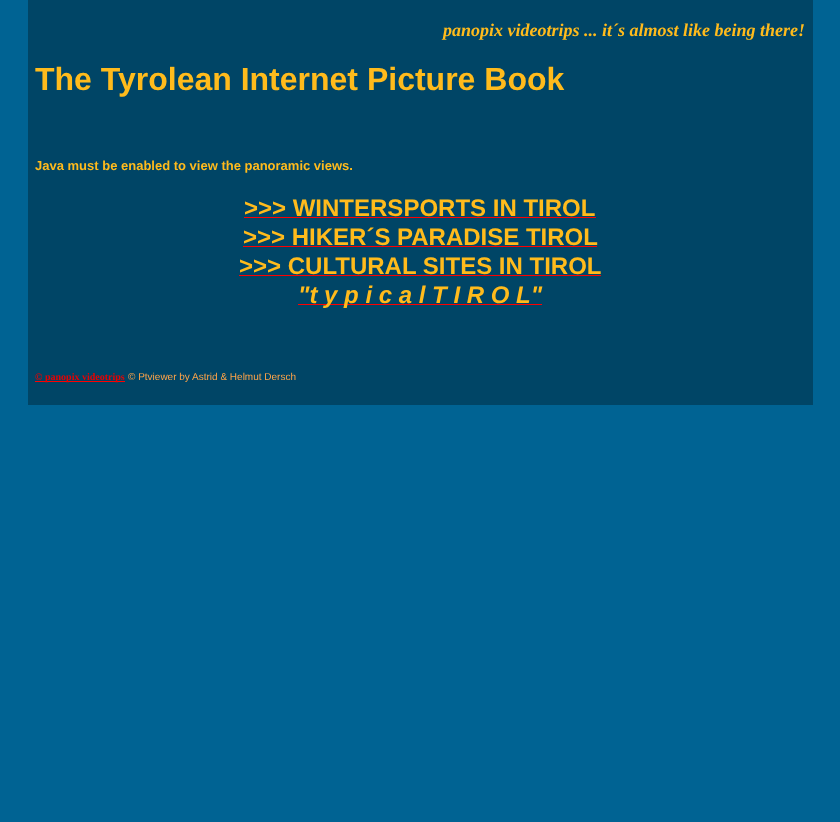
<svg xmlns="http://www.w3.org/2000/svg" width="840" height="822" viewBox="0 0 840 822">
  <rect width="100%" height="100%" fill="rgb(0,99,147)"/>
  <rect x="28" y="0" width="785" height="405" fill="rgb(0,69,102)"/>
  <text x="443" y="36" font-family="Liberation Serif" font-size="18" font-weight="bold" font-style="italic" fill="rgb(255,187,28)">panopix videotrips ... it´s almost like being there!</text>
  <text x="35" y="90" font-family="Liberation Sans" font-size="32" font-weight="bold" fill="rgb(255,187,28)">The Tyrolean Internet Picture Book</text>
  <text x="35" y="170" font-family="Liberation Sans" font-size="13" font-weight="bold" fill="rgb(255,187,28)">Java must be enabled to view the panoramic views.</text>
  <text x="244" y="216" font-family="Liberation Sans" font-size="24" font-weight="bold" fill="rgb(255,187,28)">&gt;&gt;&gt; WINTERSPORTS IN TIROL</text>
  <rect x="244" y="217" width="352" height="1" fill="rgb(255,0,0)"/>
  <text x="243" y="245" font-family="Liberation Sans" font-size="24" font-weight="bold" fill="rgb(255,187,28)">&gt;&gt;&gt; HIKER´S PARADISE TIROL</text>
  <rect x="243" y="246" width="354" height="1" fill="rgb(255,0,0)"/>
  <text x="239" y="274" font-family="Liberation Sans" font-size="24" font-weight="bold" fill="rgb(255,187,28)">&gt;&gt;&gt; CULTURAL SITES IN TIROL</text>
  <rect x="239" y="275" width="362" height="1" fill="rgb(255,0,0)"/>
  <rect x="298" y="304" width="244" height="1" fill="rgb(255,0,0)"/>
  <text x="298" y="303" font-family="Liberation Sans" font-size="24" font-weight="bold" font-style="italic" fill="rgb(255,187,28)">"t y p i c a l T I R O L"</text>
  <rect x="35" y="381" width="90" height="1" fill="rgb(255,0,0)"/>
  <text x="35" y="380" font-family="Liberation Serif" font-size="10" font-weight="bold" fill="rgb(232,0,0)">© panopix videotrips</text>
  <text x="128" y="380" font-family="Liberation Sans" font-size="10" fill="rgb(255,164,72)">© Ptviewer by Astrid &amp; Helmut Dersch</text>
</svg>
